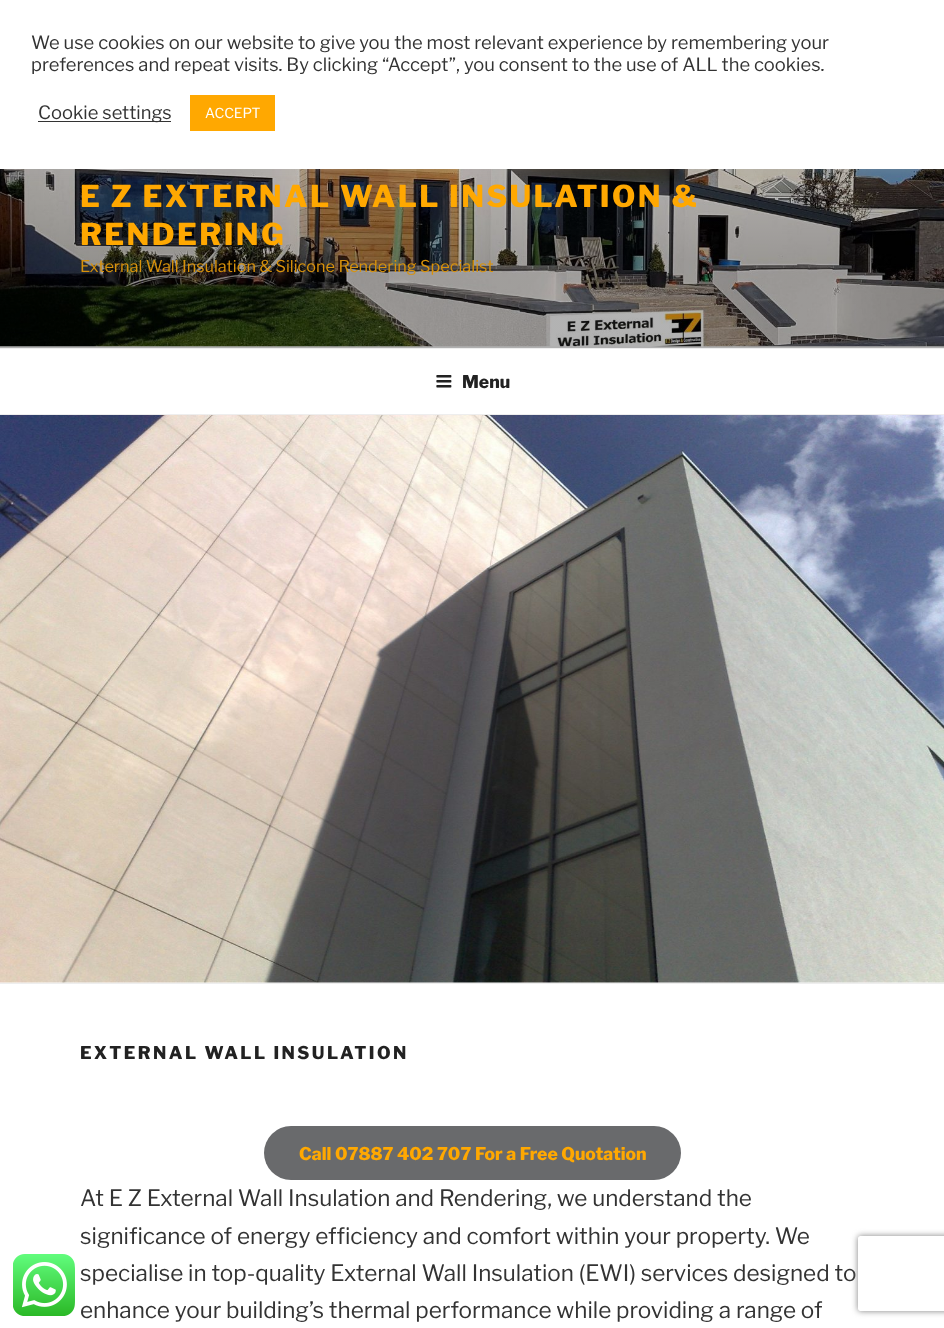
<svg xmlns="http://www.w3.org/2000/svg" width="944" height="1328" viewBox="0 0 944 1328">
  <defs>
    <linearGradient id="g1" gradientUnits="userSpaceOnUse" x1="473" y1="0" x2="473" y2="348"><stop offset="0" stop-color="rgb(0,0,0)" stop-opacity="0"/><stop offset="0.75" stop-color="rgb(0,0,0)" stop-opacity="0.3"/><stop offset="1" stop-color="rgb(0,0,0)" stop-opacity="0.3"/></linearGradient>
    <clipPath id="clip1"><path d="M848 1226H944V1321H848ZM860.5 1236H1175.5C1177 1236 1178 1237 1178 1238.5V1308.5C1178 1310 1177 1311 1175.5 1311H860.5C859 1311 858 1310 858 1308.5V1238.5C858 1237 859 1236 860.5 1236Z" clip-rule="evenodd"/></clipPath>
  </defs>
  <rect width="100%" height="100%" fill="rgb(255,255,255)"/>
  <rect x="0" y="346" width="944" height="2" fill="rgb(250,250,250)"/>
  <image x="0" y="169" width="944" height="178" href="pic2.png"/>
  <rect x="0" y="169" width="944" height="179" fill="url(#g1)"/>
  <rect x="0" y="-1" width="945" height="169" fill="rgba(172,171,171,0.3)" filter="blur(6px)"/>
  <rect x="0" y="0" width="944" height="169" fill="rgb(255,255,255)"/>
  <g font-family="'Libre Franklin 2'" font-size="18.35" font-weight="100" fill="rgb(51,51,51)">
    <text>
      <tspan x="31" y="49">We use cookies on our website to give you the most relevant experience by remembering your</tspan>
      <tspan x="31" y="71">preferences and repeat visits. By clicking “Accept”, you consent to the use of ALL the cookies.</tspan>
    </text>
  </g>
  <rect x="38" y="121" width="133" height="1" fill="rgb(51,51,51)"/>
  <text x="38" y="119" font-family="'Libre Franklin 2'" font-size="18.35" font-weight="100" fill="rgb(51,51,51)">Cookie settings</text>
  <rect x="190" y="95" width="85" height="36" fill="rgb(255,168,1)"/>
  <text x="205" y="118" font-family="'Libre Franklin 2'" font-size="13.75" font-weight="100" fill="rgb(255,255,255)">ACCEPT</text>
  <image x="13" y="1254" width="62" height="62" href="pic1.png"/>
  <g font-family="Libre Franklin" font-size="30" font-weight="100" letter-spacing="2.4" fill="rgb(255,168,1)">
    <text>
      <tspan x="80" y="207">E Z EXTERNAL WALL INSULATION &amp;</tspan>
      <tspan x="80" y="245">RENDERING</tspan>
    </text>
  </g>
  <text x="80" y="272" font-family="'Libre Franklin 2'" font-size="16.25" font-weight="100" fill="rgb(216,146,11)">External Wall Insulation &amp; Silicone Rendering Specialist</text>
  <rect x="0" y="348" width="944" height="1" fill="rgb(238,238,238)"/>
  <rect x="0" y="414" width="944" height="1" fill="rgb(238,238,238)"/>
  <image x="436" y="375" width="16" height="13" href="pic3.png"/>
  <text x="462" y="388" font-family="Libre Franklin" font-size="17.5" font-weight="100" fill="rgb(34,34,34)">Menu</text>
  <rect x="0" y="982" width="944" height="1" fill="rgb(250,250,250)"/>
  <rect x="0" y="983" width="944" height="1" fill="rgb(238,238,238)"/>
  <image x="0" y="415" width="944" height="568" href="pic4.png"/>
  <text x="80" y="1059" font-family="Libre Franklin" font-size="17.5" font-weight="100" letter-spacing="2.45" fill="rgb(34,34,34)">EXTERNAL WALL INSULATION</text>
  <rect x="264" y="1126" width="417" height="54" rx="27" fill="rgb(105,106,108)"/>
  <text x="299" y="1160" font-family="Libre Franklin" font-size="17.5" font-weight="100" fill="rgb(255,168,1)">Call 07887 402 707 For a Free Quotation</text>
  <g font-family="'Libre Franklin 2'" font-size="22.5" font-weight="100" fill="rgb(51,51,51)">
    <text>
      <tspan x="80" y="1206">At E Z External Wall Insulation and Rendering, we understand the</tspan>
      <tspan x="80" y="1244">significance of energy efficiency and comfort within your property. We</tspan>
      <tspan x="80" y="1281">specialise in top-quality External Wall Insulation (EWI) services designed to</tspan>
      <tspan x="80" y="1318">enhance your building’s thermal performance while providing a range of</tspan>
    </text>
  </g>
  <g clip-path="url(#clip1)">
    <rect x="858" y="1236" width="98" height="75" rx="2.5" fill="rgb(128,128,128)" filter="blur(3px)"/>
  </g>
</svg>
